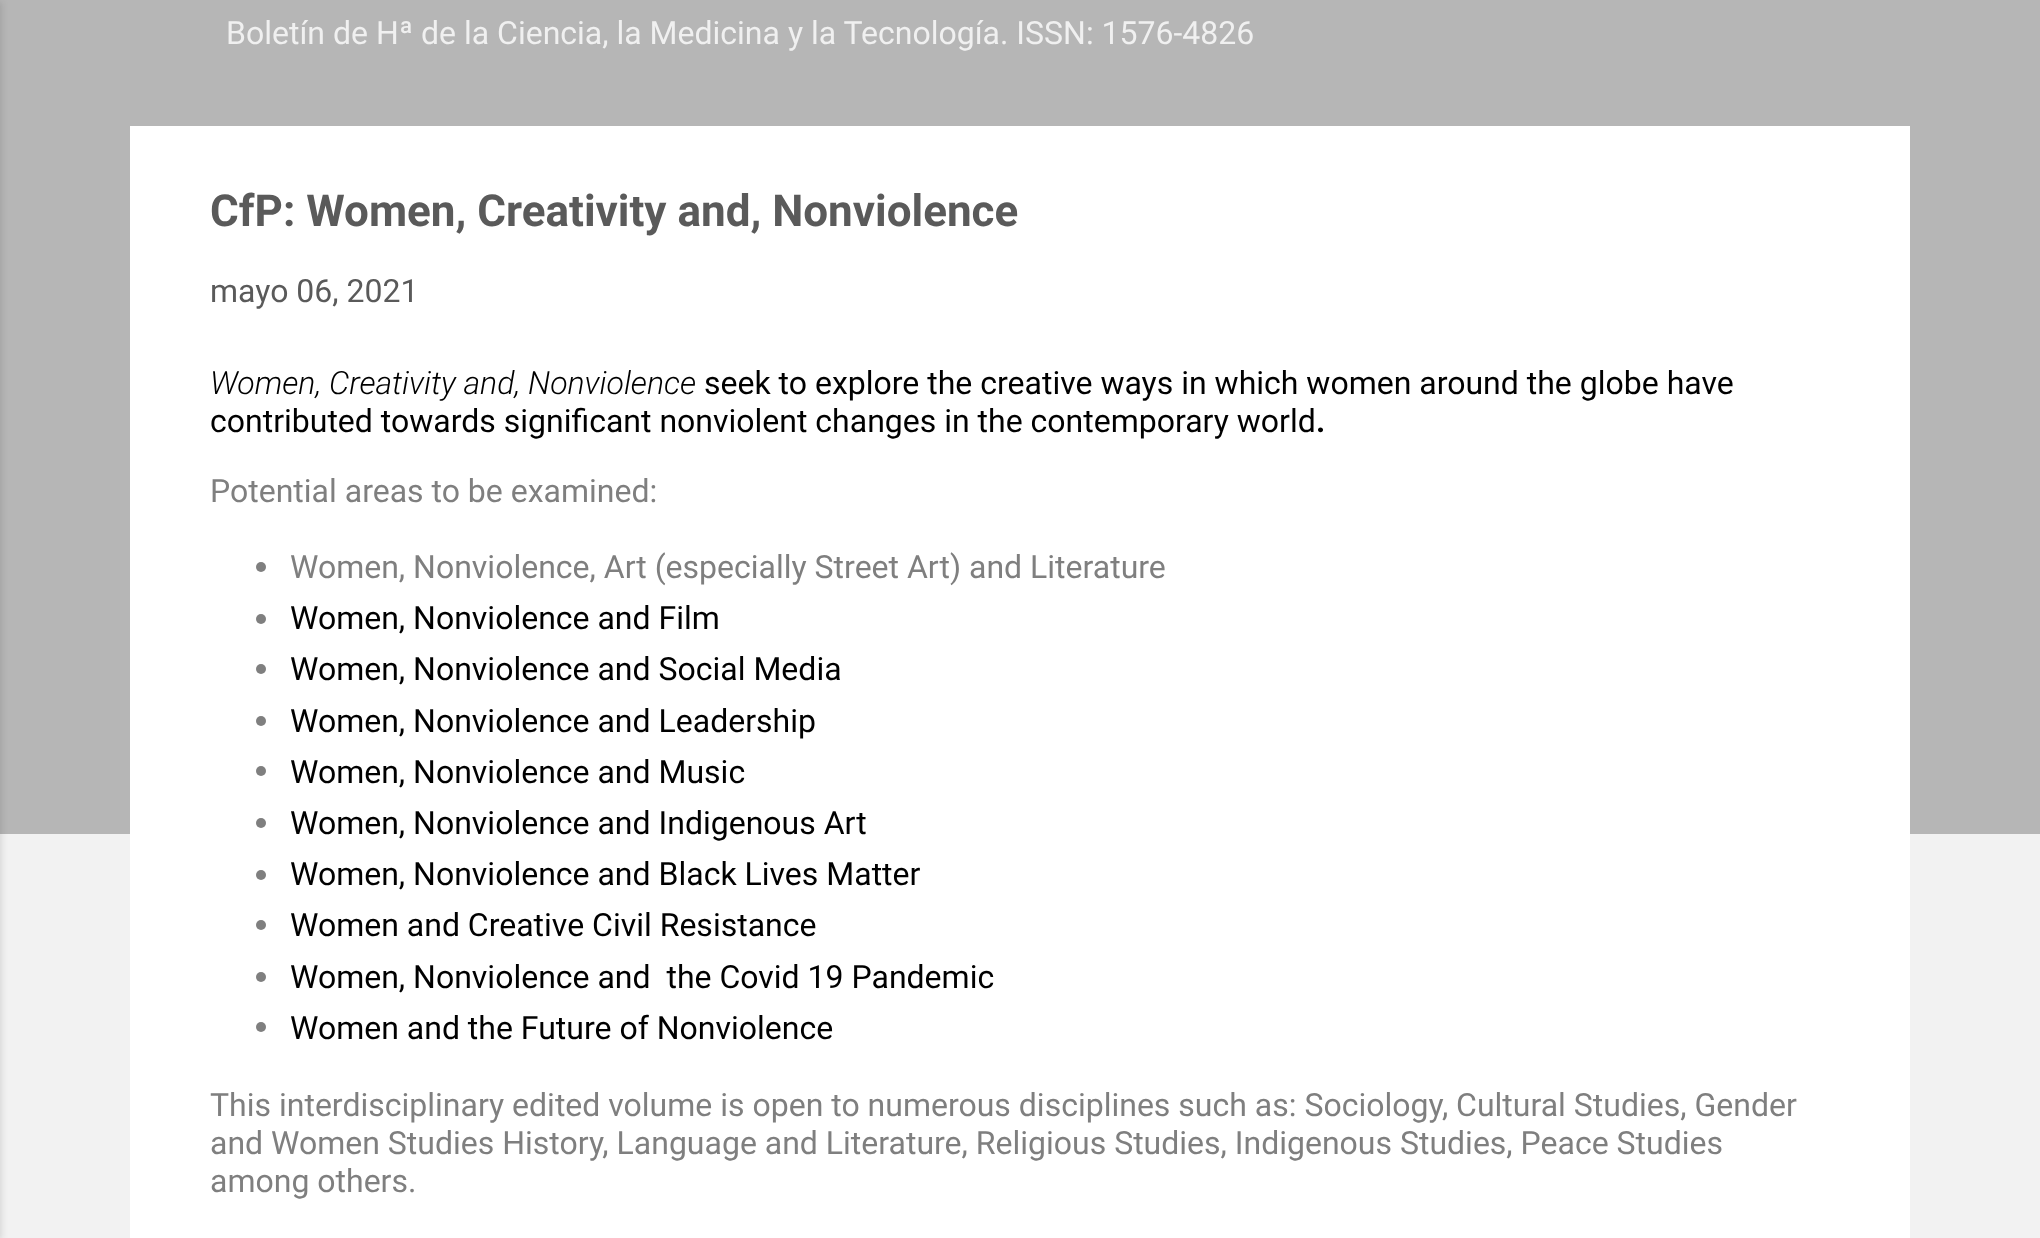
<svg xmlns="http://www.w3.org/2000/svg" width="2040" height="1238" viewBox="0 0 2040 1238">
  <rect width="100%" height="100%" fill="rgb(242,242,242)"/>
  <rect x="0" y="0" width="2040" height="834" fill="rgb(182,182,182)"/>
  <rect x="-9" y="2" width="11" height="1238" fill="rgba(0,0,0,0.1)" filter="blur(3px)"/>
  <text x="226" y="44" font-family="Roboto" font-size="32" fill="rgb(240,240,240)">Boletín de Hª de la Ciencia, la Medicina y la Tecnología. ISSN: 1576-4826</text>
  <rect x="130" y="126" width="1780" height="1112" fill="rgb(255,255,255)"/>
  <text x="210" y="226" font-family="Roboto" font-size="44" font-weight="bold" fill="rgb(90,90,90)">CfP: Women, Creativity and, Nonviolence</text>
  <text x="210" y="302" font-family="Roboto" font-size="32" fill="rgb(90,90,90)">mayo 06, 2021</text>
  <text x="210" y="394" font-family="Roboto" font-size="32" font-weight="300" font-style="italic" fill="rgb(0,0,0)">Women, Creativity and, Nonviolence</text>
  <g font-family="Roboto" font-size="32" fill="rgb(0,0,0)">
    <text x="704" y="394">seek to explore the creative ways in which women around the globe have</text>
    <text x="210" y="432">contributed towards significant nonviolent changes in the contemporary world</text>
  </g>
  <text x="1316" y="432" font-family="Roboto" font-size="32" font-weight="bold" fill="rgb(0,0,0)">.</text>
  <text x="210" y="502" font-family="Roboto" font-size="32" fill="rgb(127,127,127)">Potential areas to be examined:</text>
  <circle cx="261" cy="567" r="5" fill="rgb(127,127,127)"/>
  <text x="290" y="578" font-family="Roboto" font-size="32" fill="rgb(127,127,127)">Women, Nonviolence, Art (especially Street Art) and Literature</text>
  <circle cx="261" cy="619" r="5" fill="rgb(127,127,127)"/>
  <text x="290" y="629" font-family="Roboto" font-size="32" fill="rgb(0,0,0)">Women, Nonviolence and Film</text>
  <circle cx="261" cy="669" r="5" fill="rgb(127,127,127)"/>
  <text x="290" y="680" font-family="Roboto" font-size="32" fill="rgb(0,0,0)">Women, Nonviolence and Social Media</text>
  <circle cx="261" cy="721" r="5" fill="rgb(127,127,127)"/>
  <text x="290" y="732" font-family="Roboto" font-size="32" fill="rgb(0,0,0)">Women, Nonviolence and Leadership</text>
  <circle cx="261" cy="771" r="5" fill="rgb(127,127,127)"/>
  <text x="290" y="783" font-family="Roboto" font-size="32" fill="rgb(0,0,0)">Women, Nonviolence and Music</text>
  <circle cx="261" cy="823" r="5" fill="rgb(127,127,127)"/>
  <text x="290" y="834" font-family="Roboto" font-size="32" fill="rgb(0,0,0)">Women, Nonviolence and Indigenous Art</text>
  <circle cx="261" cy="875" r="5" fill="rgb(127,127,127)"/>
  <text x="290" y="885" font-family="Roboto" font-size="32" fill="rgb(0,0,0)">Women, Nonviolence and Black Lives Matter</text>
  <circle cx="261" cy="925" r="5" fill="rgb(127,127,127)"/>
  <text x="290" y="936" font-family="Roboto" font-size="32" fill="rgb(0,0,0)">Women and Creative Civil Resistance</text>
  <circle cx="261" cy="977" r="5" fill="rgb(127,127,127)"/>
  <text x="290" y="988" font-family="Roboto" font-size="32" fill="rgb(0,0,0)" xml:space="preserve">Women, Nonviolence and  the Covid 19 Pandemic</text>
  <circle cx="261" cy="1027" r="5" fill="rgb(127,127,127)"/>
  <text x="290" y="1039" font-family="Roboto" font-size="32" fill="rgb(0,0,0)">Women and the Future of Nonviolence</text>
  <g font-family="Roboto" font-size="32" fill="rgb(127,127,127)">
    <text>
      <tspan x="210" y="1116">This interdisciplinary edited volume is open to numerous disciplines such as: Sociology, Cultural Studies, Gender</tspan>
      <tspan x="210" y="1154">and Women Studies History, Language and Literature, Religious Studies, Indigenous Studies, Peace Studies</tspan>
      <tspan x="210" y="1192">among others.</tspan>
    </text>
  </g>
</svg>
